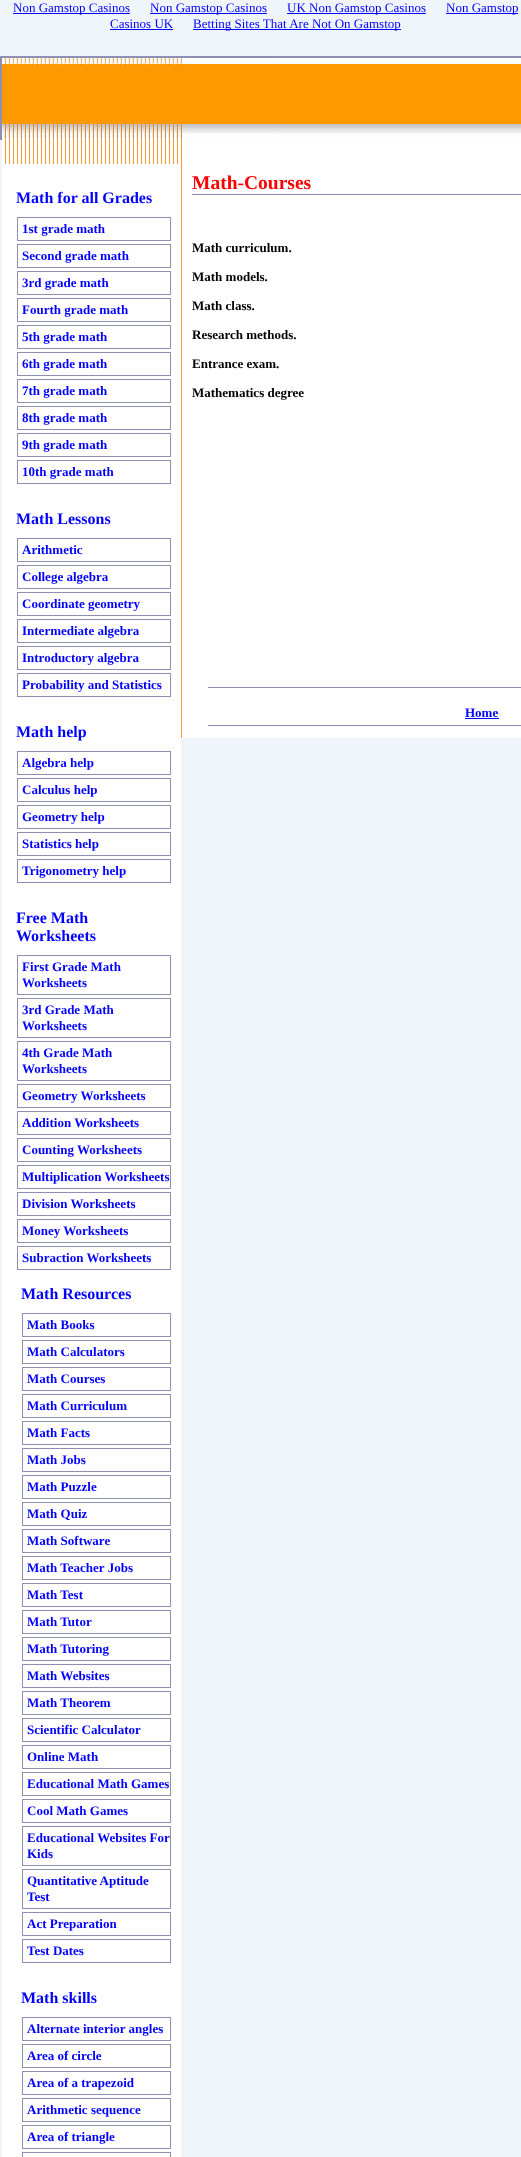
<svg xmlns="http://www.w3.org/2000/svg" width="521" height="2157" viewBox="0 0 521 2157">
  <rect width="100%" height="100%" fill="rgb(240,245,251)"/>
  <rect x="13" y="13" width="117" height="1" fill="rgb(0,0,255)"/>
  <text x="13" y="12" font-family="Liberation Serif" font-size="13" fill="rgb(0,0,255)">Non Gamstop Casinos</text>
  <rect x="150" y="13" width="117" height="1" fill="rgb(0,0,255)"/>
  <text x="150" y="12" font-family="Liberation Serif" font-size="13" fill="rgb(0,0,255)">Non Gamstop Casinos</text>
  <rect x="287" y="13" width="139" height="1" fill="rgb(0,0,255)"/>
  <text x="287" y="12" font-family="Liberation Serif" font-size="13" fill="rgb(0,0,255)">UK Non Gamstop Casinos</text>
  <rect x="446" y="13" width="72" height="1" fill="rgb(0,0,255)"/>
  <g font-family="Liberation Serif" font-size="13" fill="rgb(0,0,255)">
    <text x="446" y="12">Non Gamstop</text>
    <text x="110" y="28">Casinos UK</text>
  </g>
  <rect x="110" y="29" width="63" height="1" fill="rgb(0,0,255)"/>
  <rect x="193" y="29" width="208" height="1" fill="rgb(0,0,255)"/>
  <text x="193" y="28" font-family="Liberation Serif" font-size="13" fill="rgb(0,0,255)">Betting Sites That Are Not On Gamstop</text>
  <rect x="1" y="57" width="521" height="82" fill="none" stroke="rgb(143,143,179)" stroke-width="2"/>
  <image x="2" y="138" width="519" height="600" href="pic2.png"/>
  <rect x="2" y="164" width="179" height="1993" fill="rgb(255,255,255)"/>
  <text x="16" y="203" font-family="Liberation Serif" font-size="16" font-weight="bold" fill="rgb(0,0,255)">Math for all Grades</text>
  <rect x="17.5" y="217.5" width="153" height="23" fill="none" stroke="rgb(143,143,179)"/>
  <text x="22" y="233" font-family="Liberation Serif" font-size="13" font-weight="bold" fill="rgb(0,0,255)">1st grade math</text>
  <rect x="17.5" y="244.5" width="153" height="23" fill="none" stroke="rgb(143,143,179)"/>
  <text x="22" y="260" font-family="Liberation Serif" font-size="13" font-weight="bold" fill="rgb(0,0,255)">Second grade math</text>
  <rect x="17.5" y="271.5" width="153" height="23" fill="none" stroke="rgb(143,143,179)"/>
  <text x="22" y="287" font-family="Liberation Serif" font-size="13" font-weight="bold" fill="rgb(0,0,255)">3rd grade math</text>
  <rect x="17.5" y="298.5" width="153" height="23" fill="none" stroke="rgb(143,143,179)"/>
  <text x="22" y="314" font-family="Liberation Serif" font-size="13" font-weight="bold" fill="rgb(0,0,255)">Fourth grade math</text>
  <rect x="17.5" y="325.5" width="153" height="23" fill="none" stroke="rgb(143,143,179)"/>
  <text x="22" y="341" font-family="Liberation Serif" font-size="13" font-weight="bold" fill="rgb(0,0,255)">5th grade math</text>
  <rect x="17.5" y="352.5" width="153" height="23" fill="none" stroke="rgb(143,143,179)"/>
  <text x="22" y="368" font-family="Liberation Serif" font-size="13" font-weight="bold" fill="rgb(0,0,255)">6th grade math</text>
  <rect x="17.5" y="379.5" width="153" height="23" fill="none" stroke="rgb(143,143,179)"/>
  <text x="22" y="395" font-family="Liberation Serif" font-size="13" font-weight="bold" fill="rgb(0,0,255)">7th grade math</text>
  <rect x="17.5" y="406.5" width="153" height="23" fill="none" stroke="rgb(143,143,179)"/>
  <text x="22" y="422" font-family="Liberation Serif" font-size="13" font-weight="bold" fill="rgb(0,0,255)">8th grade math</text>
  <rect x="17.5" y="433.5" width="153" height="23" fill="none" stroke="rgb(143,143,179)"/>
  <text x="22" y="449" font-family="Liberation Serif" font-size="13" font-weight="bold" fill="rgb(0,0,255)">9th grade math</text>
  <rect x="17.5" y="460.5" width="153" height="23" fill="none" stroke="rgb(143,143,179)"/>
  <text x="22" y="476" font-family="Liberation Serif" font-size="13" font-weight="bold" fill="rgb(0,0,255)">10th grade math</text>
  <text x="16" y="524" font-family="Liberation Serif" font-size="16" font-weight="bold" fill="rgb(0,0,255)">Math Lessons</text>
  <rect x="17.5" y="538.5" width="153" height="23" fill="none" stroke="rgb(143,143,179)"/>
  <text x="22" y="554" font-family="Liberation Serif" font-size="13" font-weight="bold" fill="rgb(0,0,255)">Arithmetic</text>
  <rect x="17.5" y="565.5" width="153" height="23" fill="none" stroke="rgb(143,143,179)"/>
  <text x="22" y="581" font-family="Liberation Serif" font-size="13" font-weight="bold" fill="rgb(0,0,255)">College algebra</text>
  <rect x="17.5" y="592.5" width="153" height="23" fill="none" stroke="rgb(143,143,179)"/>
  <text x="22" y="608" font-family="Liberation Serif" font-size="13" font-weight="bold" fill="rgb(0,0,255)">Coordinate geometry</text>
  <rect x="17.5" y="619.5" width="153" height="23" fill="none" stroke="rgb(143,143,179)"/>
  <text x="22" y="635" font-family="Liberation Serif" font-size="13" font-weight="bold" fill="rgb(0,0,255)">Intermediate algebra</text>
  <rect x="17.5" y="646.5" width="153" height="23" fill="none" stroke="rgb(143,143,179)"/>
  <text x="22" y="662" font-family="Liberation Serif" font-size="13" font-weight="bold" fill="rgb(0,0,255)">Introductory algebra</text>
  <rect x="17.5" y="673.5" width="153" height="23" fill="none" stroke="rgb(143,143,179)"/>
  <text x="22" y="689" font-family="Liberation Serif" font-size="13" font-weight="bold" fill="rgb(0,0,255)">Probability and Statistics</text>
  <text x="16" y="737" font-family="Liberation Serif" font-size="16" font-weight="bold" fill="rgb(0,0,255)">Math help</text>
  <rect x="17.5" y="751.5" width="153" height="23" fill="none" stroke="rgb(143,143,179)"/>
  <text x="22" y="767" font-family="Liberation Serif" font-size="13" font-weight="bold" fill="rgb(0,0,255)">Algebra help</text>
  <rect x="17.5" y="778.5" width="153" height="23" fill="none" stroke="rgb(143,143,179)"/>
  <text x="22" y="794" font-family="Liberation Serif" font-size="13" font-weight="bold" fill="rgb(0,0,255)">Calculus help</text>
  <rect x="17.5" y="805.5" width="153" height="23" fill="none" stroke="rgb(143,143,179)"/>
  <text x="22" y="821" font-family="Liberation Serif" font-size="13" font-weight="bold" fill="rgb(0,0,255)">Geometry help</text>
  <rect x="17.5" y="832.5" width="153" height="23" fill="none" stroke="rgb(143,143,179)"/>
  <text x="22" y="848" font-family="Liberation Serif" font-size="13" font-weight="bold" fill="rgb(0,0,255)">Statistics help</text>
  <rect x="17.5" y="859.5" width="153" height="23" fill="none" stroke="rgb(143,143,179)"/>
  <text x="22" y="875" font-family="Liberation Serif" font-size="13" font-weight="bold" fill="rgb(0,0,255)">Trigonometry help</text>
  <g font-family="Liberation Serif" font-size="16" font-weight="bold" fill="rgb(0,0,255)">
    <text>
      <tspan x="16" y="923">Free Math</tspan>
      <tspan x="16" y="941">Worksheets</tspan>
    </text>
  </g>
  <rect x="17.5" y="955.5" width="153" height="39" fill="none" stroke="rgb(143,143,179)"/>
  <g font-family="Liberation Serif" font-size="13" font-weight="bold" fill="rgb(0,0,255)">
    <text>
      <tspan x="22" y="971">First Grade Math</tspan>
      <tspan x="22" y="987">Worksheets</tspan>
    </text>
  </g>
  <rect x="17.5" y="998.5" width="153" height="39" fill="none" stroke="rgb(143,143,179)"/>
  <g font-family="Liberation Serif" font-size="13" font-weight="bold" fill="rgb(0,0,255)">
    <text>
      <tspan x="22" y="1014">3rd Grade Math</tspan>
      <tspan x="22" y="1030">Worksheets</tspan>
    </text>
  </g>
  <rect x="17.5" y="1041.5" width="153" height="39" fill="none" stroke="rgb(143,143,179)"/>
  <g font-family="Liberation Serif" font-size="13" font-weight="bold" fill="rgb(0,0,255)">
    <text>
      <tspan x="22" y="1057">4th Grade Math</tspan>
      <tspan x="22" y="1073">Worksheets</tspan>
    </text>
  </g>
  <rect x="17.5" y="1084.5" width="153" height="23" fill="none" stroke="rgb(143,143,179)"/>
  <text x="22" y="1100" font-family="Liberation Serif" font-size="13" font-weight="bold" fill="rgb(0,0,255)">Geometry Worksheets</text>
  <rect x="17.5" y="1111.5" width="153" height="23" fill="none" stroke="rgb(143,143,179)"/>
  <text x="22" y="1127" font-family="Liberation Serif" font-size="13" font-weight="bold" fill="rgb(0,0,255)">Addition Worksheets</text>
  <rect x="17.5" y="1138.5" width="153" height="23" fill="none" stroke="rgb(143,143,179)"/>
  <text x="22" y="1154" font-family="Liberation Serif" font-size="13" font-weight="bold" fill="rgb(0,0,255)">Counting Worksheets</text>
  <rect x="17.5" y="1165.5" width="153" height="23" fill="none" stroke="rgb(143,143,179)"/>
  <text x="22" y="1181" font-family="Liberation Serif" font-size="13" font-weight="bold" fill="rgb(0,0,255)">Multiplication Worksheets</text>
  <rect x="17.5" y="1192.5" width="153" height="23" fill="none" stroke="rgb(143,143,179)"/>
  <text x="22" y="1208" font-family="Liberation Serif" font-size="13" font-weight="bold" fill="rgb(0,0,255)">Division Worksheets</text>
  <rect x="17.5" y="1219.5" width="153" height="23" fill="none" stroke="rgb(143,143,179)"/>
  <text x="22" y="1235" font-family="Liberation Serif" font-size="13" font-weight="bold" fill="rgb(0,0,255)">Money Worksheets</text>
  <rect x="17.5" y="1246.5" width="153" height="23" fill="none" stroke="rgb(143,143,179)"/>
  <text x="22" y="1262" font-family="Liberation Serif" font-size="13" font-weight="bold" fill="rgb(0,0,255)">Subraction Worksheets</text>
  <text x="21" y="1299" font-family="Liberation Serif" font-size="16" font-weight="bold" fill="rgb(0,0,255)">Math Resources</text>
  <rect x="22.5" y="1313.5" width="148" height="23" fill="none" stroke="rgb(143,143,179)"/>
  <text x="27" y="1329" font-family="Liberation Serif" font-size="13" font-weight="bold" fill="rgb(0,0,255)">Math Books</text>
  <rect x="22.5" y="1340.5" width="148" height="23" fill="none" stroke="rgb(143,143,179)"/>
  <text x="27" y="1356" font-family="Liberation Serif" font-size="13" font-weight="bold" fill="rgb(0,0,255)">Math Calculators</text>
  <rect x="22.5" y="1367.5" width="148" height="23" fill="none" stroke="rgb(143,143,179)"/>
  <text x="27" y="1383" font-family="Liberation Serif" font-size="13" font-weight="bold" fill="rgb(0,0,255)">Math Courses</text>
  <rect x="22.5" y="1394.5" width="148" height="23" fill="none" stroke="rgb(143,143,179)"/>
  <text x="27" y="1410" font-family="Liberation Serif" font-size="13" font-weight="bold" fill="rgb(0,0,255)">Math Curriculum</text>
  <rect x="22.5" y="1421.5" width="148" height="23" fill="none" stroke="rgb(143,143,179)"/>
  <text x="27" y="1437" font-family="Liberation Serif" font-size="13" font-weight="bold" fill="rgb(0,0,255)">Math Facts</text>
  <rect x="22.5" y="1448.5" width="148" height="23" fill="none" stroke="rgb(143,143,179)"/>
  <text x="27" y="1464" font-family="Liberation Serif" font-size="13" font-weight="bold" fill="rgb(0,0,255)">Math Jobs</text>
  <rect x="22.5" y="1475.5" width="148" height="23" fill="none" stroke="rgb(143,143,179)"/>
  <text x="27" y="1491" font-family="Liberation Serif" font-size="13" font-weight="bold" fill="rgb(0,0,255)">Math Puzzle</text>
  <rect x="22.5" y="1502.5" width="148" height="23" fill="none" stroke="rgb(143,143,179)"/>
  <text x="27" y="1518" font-family="Liberation Serif" font-size="13" font-weight="bold" fill="rgb(0,0,255)">Math Quiz</text>
  <rect x="22.5" y="1529.5" width="148" height="23" fill="none" stroke="rgb(143,143,179)"/>
  <text x="27" y="1545" font-family="Liberation Serif" font-size="13" font-weight="bold" fill="rgb(0,0,255)">Math Software</text>
  <rect x="22.5" y="1556.5" width="148" height="23" fill="none" stroke="rgb(143,143,179)"/>
  <text x="27" y="1572" font-family="Liberation Serif" font-size="13" font-weight="bold" fill="rgb(0,0,255)">Math Teacher Jobs</text>
  <rect x="22.5" y="1583.5" width="148" height="23" fill="none" stroke="rgb(143,143,179)"/>
  <text x="27" y="1599" font-family="Liberation Serif" font-size="13" font-weight="bold" fill="rgb(0,0,255)">Math Test</text>
  <rect x="22.5" y="1610.5" width="148" height="23" fill="none" stroke="rgb(143,143,179)"/>
  <text x="27" y="1626" font-family="Liberation Serif" font-size="13" font-weight="bold" fill="rgb(0,0,255)">Math Tutor</text>
  <rect x="22.5" y="1637.5" width="148" height="23" fill="none" stroke="rgb(143,143,179)"/>
  <text x="27" y="1653" font-family="Liberation Serif" font-size="13" font-weight="bold" fill="rgb(0,0,255)">Math Tutoring</text>
  <rect x="22.5" y="1664.5" width="148" height="23" fill="none" stroke="rgb(143,143,179)"/>
  <text x="27" y="1680" font-family="Liberation Serif" font-size="13" font-weight="bold" fill="rgb(0,0,255)">Math Websites</text>
  <rect x="22.5" y="1691.5" width="148" height="23" fill="none" stroke="rgb(143,143,179)"/>
  <text x="27" y="1707" font-family="Liberation Serif" font-size="13" font-weight="bold" fill="rgb(0,0,255)">Math Theorem</text>
  <rect x="22.5" y="1718.5" width="148" height="23" fill="none" stroke="rgb(143,143,179)"/>
  <text x="27" y="1734" font-family="Liberation Serif" font-size="13" font-weight="bold" fill="rgb(0,0,255)">Scientific Calculator</text>
  <rect x="22.5" y="1745.5" width="148" height="23" fill="none" stroke="rgb(143,143,179)"/>
  <text x="27" y="1761" font-family="Liberation Serif" font-size="13" font-weight="bold" fill="rgb(0,0,255)">Online Math</text>
  <rect x="22.5" y="1772.5" width="148" height="23" fill="none" stroke="rgb(143,143,179)"/>
  <text x="27" y="1788" font-family="Liberation Serif" font-size="13" font-weight="bold" fill="rgb(0,0,255)">Educational Math Games</text>
  <rect x="22.5" y="1799.5" width="148" height="23" fill="none" stroke="rgb(143,143,179)"/>
  <text x="27" y="1815" font-family="Liberation Serif" font-size="13" font-weight="bold" fill="rgb(0,0,255)">Cool Math Games</text>
  <rect x="22.5" y="1826.5" width="148" height="39" fill="none" stroke="rgb(143,143,179)"/>
  <g font-family="Liberation Serif" font-size="13" font-weight="bold" fill="rgb(0,0,255)">
    <text>
      <tspan x="27" y="1842">Educational Websites For</tspan>
      <tspan x="27" y="1858">Kids</tspan>
    </text>
  </g>
  <rect x="22.5" y="1869.5" width="148" height="39" fill="none" stroke="rgb(143,143,179)"/>
  <g font-family="Liberation Serif" font-size="13" font-weight="bold" fill="rgb(0,0,255)">
    <text>
      <tspan x="27" y="1885">Quantitative Aptitude</tspan>
      <tspan x="27" y="1901">Test</tspan>
    </text>
  </g>
  <rect x="22.5" y="1912.5" width="148" height="23" fill="none" stroke="rgb(143,143,179)"/>
  <text x="27" y="1928" font-family="Liberation Serif" font-size="13" font-weight="bold" fill="rgb(0,0,255)">Act Preparation</text>
  <rect x="22.5" y="1939.5" width="148" height="23" fill="none" stroke="rgb(143,143,179)"/>
  <text x="27" y="1955" font-family="Liberation Serif" font-size="13" font-weight="bold" fill="rgb(0,0,255)">Test Dates</text>
  <text x="21" y="2003" font-family="Liberation Serif" font-size="16" font-weight="bold" fill="rgb(0,0,255)">Math skills</text>
  <rect x="22.5" y="2017.5" width="148" height="23" fill="none" stroke="rgb(143,143,179)"/>
  <text x="27" y="2033" font-family="Liberation Serif" font-size="13" font-weight="bold" fill="rgb(0,0,255)">Alternate interior angles</text>
  <rect x="22.5" y="2044.5" width="148" height="23" fill="none" stroke="rgb(143,143,179)"/>
  <text x="27" y="2060" font-family="Liberation Serif" font-size="13" font-weight="bold" fill="rgb(0,0,255)">Area of circle</text>
  <rect x="22.5" y="2071.5" width="148" height="23" fill="none" stroke="rgb(143,143,179)"/>
  <text x="27" y="2087" font-family="Liberation Serif" font-size="13" font-weight="bold" fill="rgb(0,0,255)">Area of a trapezoid</text>
  <rect x="22.5" y="2098.5" width="148" height="23" fill="none" stroke="rgb(143,143,179)"/>
  <text x="27" y="2114" font-family="Liberation Serif" font-size="13" font-weight="bold" fill="rgb(0,0,255)">Arithmetic sequence</text>
  <rect x="22.5" y="2125.5" width="148" height="23" fill="none" stroke="rgb(143,143,179)"/>
  <text x="27" y="2141" font-family="Liberation Serif" font-size="13" font-weight="bold" fill="rgb(0,0,255)">Area of triangle</text>
  <rect x="22.5" y="2152.5" width="148" height="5" fill="none" stroke="rgb(143,143,179)"/>
  <image x="2" y="58" width="519" height="80" href="pic1.png"/>
  <rect x="192" y="194" width="329" height="1" fill="rgb(143,143,179)"/>
  <text x="192" y="189" font-family="Liberation Serif" font-size="19.5" font-weight="bold" fill="rgb(255,0,0)">Math-Courses</text>
  <g font-family="Liberation Serif" font-size="13" font-weight="bold" fill="rgb(0,0,0)">
    <text x="192" y="252">Math curriculum.</text>
    <text x="192" y="281">Math models.</text>
    <text x="192" y="310">Math class.</text>
    <text x="192" y="339">Research methods.</text>
    <text x="192" y="368">Entrance exam.</text>
    <text x="192" y="397">Mathematics degree</text>
  </g>
  <rect x="208" y="687" width="313" height="1" fill="rgb(143,143,179)"/>
  <rect x="208" y="725" width="313" height="1" fill="rgb(143,143,179)"/>
  <text x="465" y="717" font-family="Liberation Serif" font-size="13" font-weight="bold" fill="rgb(0,0,255)">Home</text>
  <rect x="465" y="718" width="34" height="1" fill="rgb(0,0,255)"/>
</svg>
